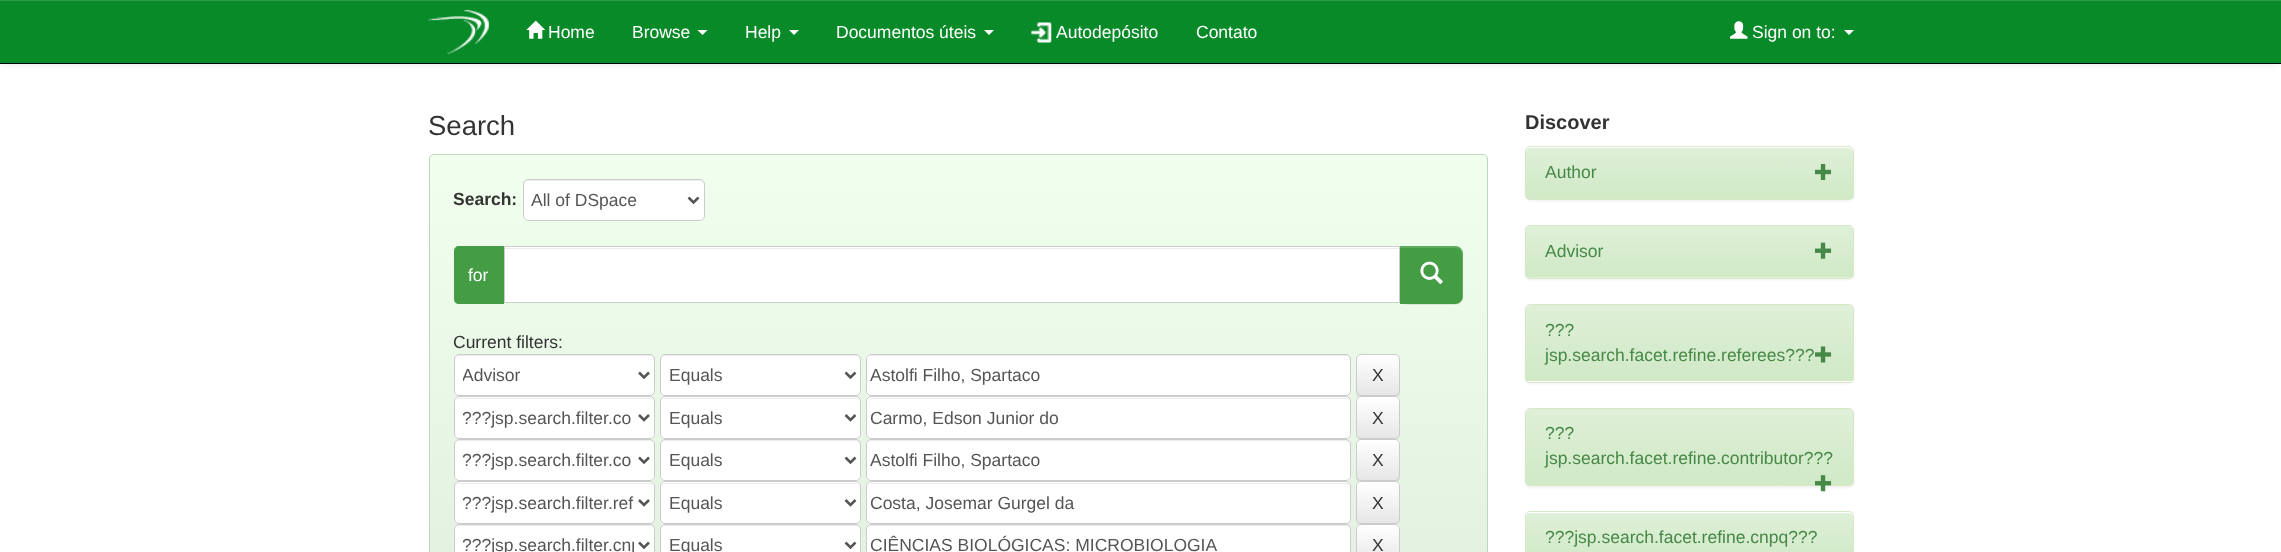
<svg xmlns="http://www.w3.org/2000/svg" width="2281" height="552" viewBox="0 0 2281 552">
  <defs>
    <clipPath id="clip1"><rect x="429" y="154" width="1059" height="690" rx="5"/></clipPath>
    <linearGradient id="g1" gradientUnits="userSpaceOnUse" x1="958" y1="155" x2="958" y2="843"><stop offset="0" stop-color="rgb(241,255,238)"/><stop offset="1" stop-color="rgb(218,232,215)"/></linearGradient>
    <clipPath id="clip2"><rect x="463" y="364" width="171" height="22"/></clipPath>
    <clipPath id="clip3"><rect x="1356" y="354" width="44" height="42" rx="5"/></clipPath>
    <linearGradient id="g2" gradientUnits="userSpaceOnUse" x1="1378" y1="355" x2="1378" y2="395"><stop offset="0" stop-color="rgb(255,255,255)"/><stop offset="1" stop-color="rgb(230,230,230)"/></linearGradient>
    <clipPath id="clip4"><rect x="1356" y="396" width="44" height="43" rx="5"/></clipPath>
    <linearGradient id="g3" gradientUnits="userSpaceOnUse" x1="1378" y1="398" x2="1378" y2="438"><stop offset="0" stop-color="rgb(255,255,255)"/><stop offset="1" stop-color="rgb(230,230,230)"/></linearGradient>
    <clipPath id="clip5"><rect x="1356" y="439" width="44" height="42" rx="5"/></clipPath>
    <linearGradient id="g4" gradientUnits="userSpaceOnUse" x1="1378" y1="440" x2="1378" y2="480"><stop offset="0" stop-color="rgb(255,255,255)"/><stop offset="1" stop-color="rgb(230,230,230)"/></linearGradient>
    <clipPath id="clip6"><rect x="1356" y="481" width="44" height="43" rx="5"/></clipPath>
    <linearGradient id="g5" gradientUnits="userSpaceOnUse" x1="1378" y1="483" x2="1378" y2="523"><stop offset="0" stop-color="rgb(255,255,255)"/><stop offset="1" stop-color="rgb(230,230,230)"/></linearGradient>
    <clipPath id="clip7"><rect x="463" y="534" width="171" height="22"/></clipPath>
    <clipPath id="clip8"><rect x="1356" y="524" width="44" height="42" rx="5"/></clipPath>
    <linearGradient id="g6" gradientUnits="userSpaceOnUse" x1="1378" y1="525" x2="1378" y2="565"><stop offset="0" stop-color="rgb(255,255,255)"/><stop offset="1" stop-color="rgb(230,230,230)"/></linearGradient>
    <linearGradient id="g7" gradientUnits="userSpaceOnUse" x1="1689" y1="147" x2="1689" y2="198"><stop offset="0" stop-color="rgb(223,240,216)"/><stop offset="1" stop-color="rgb(208,233,198)"/></linearGradient>
    <linearGradient id="g8" gradientUnits="userSpaceOnUse" x1="1689" y1="226" x2="1689" y2="276"><stop offset="0" stop-color="rgb(223,240,216)"/><stop offset="1" stop-color="rgb(208,233,198)"/></linearGradient>
    <linearGradient id="g9" gradientUnits="userSpaceOnUse" x1="1689" y1="305" x2="1689" y2="380"><stop offset="0" stop-color="rgb(223,240,216)"/><stop offset="1" stop-color="rgb(208,233,198)"/></linearGradient>
    <linearGradient id="g10" gradientUnits="userSpaceOnUse" x1="1689" y1="409" x2="1689" y2="484"><stop offset="0" stop-color="rgb(223,240,216)"/><stop offset="1" stop-color="rgb(208,233,198)"/></linearGradient>
    <linearGradient id="g11" gradientUnits="userSpaceOnUse" x1="1689" y1="513" x2="1689" y2="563"><stop offset="0" stop-color="rgb(223,240,216)"/><stop offset="1" stop-color="rgb(208,233,198)"/></linearGradient>
  </defs>
  <rect width="100%" height="100%" fill="rgb(255,255,255)"/>
  <rect x="0" y="1" width="2281" height="64" fill="rgba(0,0,0,0.07)" filter="blur(3px)"/>
  <rect x="0" y="1" width="2281" height="62" fill="rgb(8,138,41)"/>
  <rect x="0" y="0" width="2281" height="1" fill="rgb(45,156,73)"/>
  <rect x="0" y="63" width="2281" height="1" fill="rgb(8,8,8)"/>
  <image x="428" y="10" width="61" height="44" href="pic1.png"/>
  <image x="526" y="20" width="20" height="19" href="pic2.png"/>
  <g font-family="Liberation Sans" font-size="17.5" fill="rgb(255,255,255)">
    <text x="548" y="38">Home</text>
    <text x="632" y="38">Browse</text>
  </g>
  <path d="M697.5 30H707.5L702.5 35Z" fill="rgb(255,255,255)"/>
  <text x="745" y="38" font-family="Liberation Sans" font-size="17.5" fill="rgb(255,255,255)">Help</text>
  <path d="M789 30H799L794 35Z" fill="rgb(255,255,255)"/>
  <text x="836" y="38" font-family="Liberation Sans" font-size="17.5" fill="rgb(255,255,255)">Documentos úteis</text>
  <path d="M984 30H994L989 35Z" fill="rgb(255,255,255)"/>
  <image x="1031" y="22" width="21" height="21" href="pic3.png"/>
  <g font-family="Liberation Sans" font-size="17.5" fill="rgb(255,255,255)">
    <text x="1056" y="38">Autodepósito</text>
    <text x="1196" y="38">Contato</text>
  </g>
  <image x="1730" y="21" width="18" height="18" href="pic4.png"/>
  <text x="1752" y="38" font-family="Liberation Sans" font-size="17.5" fill="rgb(255,255,255)">Sign on to:</text>
  <path d="M1844 30H1854L1849 35Z" fill="rgb(255,255,255)"/>
  <text x="428" y="135" font-family="Liberation Sans" font-size="27.5" fill="rgb(51,51,51)">Search</text>
  <g clip-path="url(#clip1)">
    <rect x="429" y="155" width="1059" height="397" fill="url(#g1)"/>
  </g>
  <rect x="429.5" y="154.5" width="1058" height="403" rx="4.5" fill="none" stroke="rgb(190,215,190)"/>
  <text x="453" y="205" font-family="Liberation Sans" font-size="17.5" font-weight="bold" fill="rgb(51,51,51)">Search:</text>
  <rect x="523" y="179" width="182" height="42" rx="5" fill="rgb(255,255,255)"/>
  <path d="M528 181H700C702 181 704 183 704 185V184C704 182 702 180 700 180H528C526 180 524 182 524 184V185C524 183 525 181 528 181Z" fill="rgb(236,236,236)"/>
  <rect x="523.5" y="179.5" width="181" height="41" rx="4.5" fill="none" stroke="rgb(204,204,204)"/>
  <path d="M688.5 197.5L693.5 202.5L698.5 197.5" fill="none" stroke="rgb(85,85,85)" stroke-width="2.5"/>
  <text x="531" y="206" font-family="Liberation Sans" font-size="17.5" fill="rgb(85,85,85)">All of DSpace</text>
  <path d="M459 246H504V304H459C456 304 454 302 454 299V251C454 248 456 246 459 246Z" fill="rgb(68,157,68)"/>
  <text x="468" y="281" font-family="Liberation Sans" font-size="17.5" fill="rgb(255,255,255)">for</text>
  <rect x="505" y="247" width="894" height="55" fill="rgb(255,255,255)"/>
  <rect x="505" y="248" width="894" height="1" fill="rgb(236,236,236)"/>
  <rect x="504.5" y="246.5" width="895" height="56" fill="none" stroke="rgb(204,204,204)"/>
  <rect x="1400" y="248" width="63" height="57" rx="8" fill="rgba(0,0,0,0.07)" filter="blur(0.5px)"/>
  <path d="M1400 246H1455C1459.5 246 1463 249.5 1463 254V296C1463 300.5 1459.5 304 1455 304H1400Z" fill="rgb(68,157,68)"/>
  <path d="M1400 248H1455C1459 248 1462 251 1462 255V298V301C1462 299 1463 298 1463 296V254C1463 250 1459 246 1455 246H1400Z" fill="rgba(255,255,255,0.15)"/>
  <image x="1420" y="261" width="23" height="24" href="pic5.png"/>
  <text x="453" y="348" font-family="Liberation Sans" font-size="17.5" fill="rgb(51,51,51)">Current filters:</text>
  <rect x="454" y="354" width="201" height="42" rx="5" fill="rgb(255,255,255)"/>
  <path d="M459 356H650C652 356 654 358 654 360V359C654 357 652 355 650 355H459C457 355 455 357 455 359V360C455 358 457 356 459 356Z" fill="rgb(236,236,236)"/>
  <rect x="454.5" y="354.5" width="200" height="41" rx="4.5" fill="none" stroke="rgb(204,204,204)"/>
  <path d="M639 372.5L644 377.5L649 372.5" fill="none" stroke="rgb(85,85,85)" stroke-width="2.5"/>
  <g clip-path="url(#clip2)">
    <text x="462" y="381" font-family="Liberation Sans" font-size="17.5" fill="rgb(85,85,85)">Advisor</text>
  </g>
  <rect x="660" y="354" width="201" height="42" rx="5" fill="rgb(255,255,255)"/>
  <path d="M665 356H856C858 356 860 358 860 360V359C860 357 858 355 856 355H665C663 355 661 357 661 359V360C661 358 663 356 665 356Z" fill="rgb(236,236,236)"/>
  <rect x="660.5" y="354.5" width="200" height="41" rx="4.5" fill="none" stroke="rgb(204,204,204)"/>
  <path d="M845.5 372.5L850.5 377.5L855.5 372.5" fill="none" stroke="rgb(85,85,85)" stroke-width="2.5"/>
  <text x="669" y="381" font-family="Liberation Sans" font-size="17.5" fill="rgb(85,85,85)">Equals</text>
  <rect x="866" y="354" width="485" height="42" rx="5" fill="rgb(255,255,255)"/>
  <path d="M871 356H1346C1348 356 1350 358 1350 360C1350 357 1349 355 1346 355H872C869 355 868 357 868 360C868 358 869 356 871 356Z" fill="rgb(236,236,236)"/>
  <rect x="866.5" y="354.5" width="484" height="41" rx="4.5" fill="none" stroke="rgb(204,204,204)"/>
  <text x="870" y="381" font-family="Liberation Sans" font-size="17.5" fill="rgb(85,85,85)">Astolfi Filho, Spartaco</text>
  <rect x="1356" y="355" width="44" height="43" rx="5" fill="rgba(0,0,0,0.07)" filter="blur(0.5px)"/>
  <g clip-path="url(#clip3)">
    <rect x="1356" y="355" width="44" height="40" fill="url(#g2)"/>
  </g>
  <rect x="1356.5" y="354.5" width="43" height="41" rx="4.5" fill="none" stroke="rgb(204,204,204)"/>
  <text x="1372" y="381" font-family="Liberation Sans" font-size="17.5" fill="rgb(51,51,51)">X</text>
  <rect x="454" y="396" width="201" height="43" rx="5" fill="rgb(255,255,255)"/>
  <path d="M459 399H650C652 399 654 400 654 402C654 400 652 398 650 398H459C457 398 455 400 455 402C455 400 457 399 459 399Z" fill="rgb(236,236,236)"/>
  <rect x="454.5" y="396.5" width="200" height="42" rx="4.5" fill="none" stroke="rgb(204,204,204)"/>
  <path d="M639 415L644 420L649 415" fill="none" stroke="rgb(85,85,85)" stroke-width="2.5"/>
  <text x="462" y="424" font-family="Liberation Sans" font-size="17.5" fill="rgb(85,85,85)">???jsp.search.filter.co</text>
  <rect x="660" y="396" width="201" height="43" rx="5" fill="rgb(255,255,255)"/>
  <path d="M665 399H856C858 399 860 400 860 402C860 400 858 398 856 398H665C663 398 661 400 661 402C661 400 663 399 665 399Z" fill="rgb(236,236,236)"/>
  <rect x="660.5" y="396.5" width="200" height="42" rx="4.5" fill="none" stroke="rgb(204,204,204)"/>
  <path d="M845.5 415L850.5 420L855.5 415" fill="none" stroke="rgb(85,85,85)" stroke-width="2.5"/>
  <text x="669" y="424" font-family="Liberation Sans" font-size="17.5" fill="rgb(85,85,85)">Equals</text>
  <rect x="866" y="396" width="485" height="43" rx="5" fill="rgb(255,255,255)"/>
  <path d="M871 399H1346C1348 399 1350 400 1350 402C1350 400 1348 398 1346 398H872C871 398 869 399 869 400Z" fill="rgb(236,236,236)"/>
  <rect x="866.5" y="396.5" width="484" height="42" rx="4.5" fill="none" stroke="rgb(204,204,204)"/>
  <text x="870" y="424" font-family="Liberation Sans" font-size="17.5" fill="rgb(85,85,85)">Carmo, Edson Junior do</text>
  <rect x="1356" y="398" width="44" height="42" rx="5" fill="rgba(0,0,0,0.07)" filter="blur(0.5px)"/>
  <rect x="1356" y="396" width="44" height="43" rx="5" fill="rgb(255,255,255)"/>
  <g clip-path="url(#clip4)">
    <rect x="1356" y="398" width="44" height="40" fill="url(#g3)"/>
  </g>
  <rect x="1356.5" y="396.5" width="43" height="42" rx="4.5" fill="none" stroke="rgb(204,204,204)"/>
  <text x="1372" y="424" font-family="Liberation Sans" font-size="17.5" fill="rgb(51,51,51)">X</text>
  <rect x="454" y="439" width="201" height="42" rx="5" fill="rgb(255,255,255)"/>
  <path d="M459 441H650C652 441 654 443 654 445V444C654 442 652 440 650 440H459C457 440 455 442 455 444V445C455 443 457 441 459 441Z" fill="rgb(236,236,236)"/>
  <rect x="454.5" y="439.5" width="200" height="41" rx="4.5" fill="none" stroke="rgb(204,204,204)"/>
  <path d="M639 457.5L644 462.5L649 457.5" fill="none" stroke="rgb(85,85,85)" stroke-width="2.5"/>
  <text x="462" y="466" font-family="Liberation Sans" font-size="17.5" fill="rgb(85,85,85)">???jsp.search.filter.co</text>
  <rect x="660" y="439" width="201" height="42" rx="5" fill="rgb(255,255,255)"/>
  <path d="M665 441H856C858 441 860 443 860 445V444C860 442 858 440 856 440H665C663 440 661 442 661 444V445C661 443 663 441 665 441Z" fill="rgb(236,236,236)"/>
  <rect x="660.5" y="439.5" width="200" height="41" rx="4.5" fill="none" stroke="rgb(204,204,204)"/>
  <path d="M845.5 457.5L850.5 462.5L855.5 457.5" fill="none" stroke="rgb(85,85,85)" stroke-width="2.5"/>
  <text x="669" y="466" font-family="Liberation Sans" font-size="17.5" fill="rgb(85,85,85)">Equals</text>
  <rect x="866" y="439" width="485" height="42" rx="5" fill="rgb(255,255,255)"/>
  <path d="M871 441H1346C1348 441 1350 443 1350 445C1350 442 1349 440 1346 440H872C869 440 868 442 868 445C868 443 869 441 871 441Z" fill="rgb(236,236,236)"/>
  <rect x="866.5" y="439.5" width="484" height="41" rx="4.5" fill="none" stroke="rgb(204,204,204)"/>
  <text x="870" y="466" font-family="Liberation Sans" font-size="17.5" fill="rgb(85,85,85)">Astolfi Filho, Spartaco</text>
  <rect x="1356" y="440" width="44" height="43" rx="5" fill="rgba(0,0,0,0.07)" filter="blur(0.5px)"/>
  <g clip-path="url(#clip5)">
    <rect x="1356" y="440" width="44" height="40" fill="url(#g4)"/>
  </g>
  <rect x="1356.5" y="439.5" width="43" height="41" rx="4.5" fill="none" stroke="rgb(204,204,204)"/>
  <text x="1372" y="466" font-family="Liberation Sans" font-size="17.5" fill="rgb(51,51,51)">X</text>
  <rect x="454" y="481" width="201" height="43" rx="5" fill="rgb(255,255,255)"/>
  <path d="M459 484H650C652 484 654 485 654 488V487C654 485 652 483 650 483H459C457 483 455 485 455 487V488C455 485 457 484 459 484Z" fill="rgb(236,236,236)"/>
  <rect x="454.5" y="481.5" width="200" height="42" rx="4.5" fill="none" stroke="rgb(204,204,204)"/>
  <path d="M639 500L644 505L649 500" fill="none" stroke="rgb(85,85,85)" stroke-width="2.5"/>
  <text x="462" y="509" font-family="Liberation Sans" font-size="17.5" fill="rgb(85,85,85)">???jsp.search.filter.ref</text>
  <rect x="660" y="481" width="201" height="43" rx="5" fill="rgb(255,255,255)"/>
  <path d="M665 484H856C858 484 860 485 860 488V487C860 485 858 483 856 483H665C663 483 661 485 661 487V488C661 485 663 484 665 484Z" fill="rgb(236,236,236)"/>
  <rect x="660.5" y="481.5" width="200" height="42" rx="4.5" fill="none" stroke="rgb(204,204,204)"/>
  <path d="M845.5 500L850.5 505L855.5 500" fill="none" stroke="rgb(85,85,85)" stroke-width="2.5"/>
  <text x="669" y="509" font-family="Liberation Sans" font-size="17.5" fill="rgb(85,85,85)">Equals</text>
  <rect x="866" y="481" width="485" height="43" rx="5" fill="rgb(255,255,255)"/>
  <path d="M871 484H1346C1348 484 1350 485 1350 488C1350 485 1349 483 1346 483H872C869 483 868 485 868 488C868 485 869 484 871 484Z" fill="rgb(236,236,236)"/>
  <rect x="866.5" y="481.5" width="484" height="42" rx="4.5" fill="none" stroke="rgb(204,204,204)"/>
  <text x="870" y="509" font-family="Liberation Sans" font-size="17.5" fill="rgb(85,85,85)">Costa, Josemar Gurgel da</text>
  <rect x="1356" y="483" width="44" height="42" rx="5" fill="rgba(0,0,0,0.07)" filter="blur(0.5px)"/>
  <rect x="1356" y="481" width="44" height="43" rx="5" fill="rgb(255,255,255)"/>
  <g clip-path="url(#clip6)">
    <rect x="1356" y="483" width="44" height="40" fill="url(#g5)"/>
  </g>
  <rect x="1356.5" y="481.5" width="43" height="42" rx="4.5" fill="none" stroke="rgb(204,204,204)"/>
  <text x="1372" y="509" font-family="Liberation Sans" font-size="17.5" fill="rgb(51,51,51)">X</text>
  <rect x="454" y="524" width="201" height="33" rx="5" fill="rgb(255,255,255)"/>
  <path d="M459 526H650C652 526 654 528 654 530V529C654 527 652 525 650 525H459C457 525 455 527 455 529V530C455 528 457 526 459 526Z" fill="rgb(236,236,236)"/>
  <rect x="454.5" y="524.5" width="200" height="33" rx="4.5" fill="none" stroke="rgb(204,204,204)"/>
  <path d="M639 542.5L644 547.5L649 542.5" fill="none" stroke="rgb(85,85,85)" stroke-width="2.5"/>
  <g clip-path="url(#clip7)">
    <text x="462" y="551" font-family="Liberation Sans" font-size="17.5" fill="rgb(85,85,85)">???jsp.search.filter.cnp</text>
  </g>
  <rect x="660" y="524" width="201" height="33" rx="5" fill="rgb(255,255,255)"/>
  <path d="M665 526H856C858 526 860 528 860 530V529C860 527 858 525 856 525H665C663 525 661 527 661 529V530C661 528 663 526 665 526Z" fill="rgb(236,236,236)"/>
  <rect x="660.5" y="524.5" width="200" height="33" rx="4.5" fill="none" stroke="rgb(204,204,204)"/>
  <path d="M845.5 542.5L850.5 547.5L855.5 542.5" fill="none" stroke="rgb(85,85,85)" stroke-width="2.5"/>
  <text x="669" y="551" font-family="Liberation Sans" font-size="17.5" fill="rgb(85,85,85)">Equals</text>
  <rect x="866" y="524" width="485" height="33" rx="5" fill="rgb(255,255,255)"/>
  <path d="M871 526H1346C1348 526 1350 528 1350 530C1350 527 1349 525 1346 525H872C869 525 868 527 868 530C868 528 869 526 871 526Z" fill="rgb(236,236,236)"/>
  <rect x="866.5" y="524.5" width="484" height="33" rx="4.5" fill="none" stroke="rgb(204,204,204)"/>
  <text x="870" y="551" font-family="Liberation Sans" font-size="17.5" fill="rgb(85,85,85)">CIÊNCIAS BIOLÓGICAS: MICROBIOLOGIA</text>
  <g clip-path="url(#clip8)">
    <rect x="1356" y="525" width="44" height="27" fill="url(#g6)"/>
  </g>
  <rect x="1356.5" y="524.5" width="43" height="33" rx="4.5" fill="none" stroke="rgb(204,204,204)"/>
  <text x="1372" y="551" font-family="Liberation Sans" font-size="17.5" fill="rgb(51,51,51)">X</text>
  <text x="1525" y="129" font-family="Liberation Sans" font-size="20" font-weight="bold" fill="rgb(51,51,51)">Discover</text>
  <rect x="1525" y="148" width="329" height="53" rx="5" fill="rgba(0,0,0,0.05)" filter="blur(1px)"/>
  <rect x="1525.5" y="146.5" width="328" height="53" rx="4.5" fill="rgb(255,255,255)" stroke="rgb(214,233,198)"/>
  <path d="M1530 148H1849C1851 148 1853 150 1853 152V198H1526V152C1526 150 1528 148 1530 148Z" fill="url(#g7)"/>
  <rect x="1526" y="198" width="327" height="1" fill="rgb(214,233,198)"/>
  <text x="1545" y="178" font-family="Liberation Sans" font-size="17.5" fill="rgb(70,136,71)">Author</text>
  <image x="1815" y="163" width="17" height="17" href="pic6.png"/>
  <rect x="1525" y="226" width="329" height="54" rx="5" fill="rgba(0,0,0,0.05)" filter="blur(1px)"/>
  <rect x="1525.5" y="225.5" width="328" height="53" rx="4.5" fill="none" stroke="rgb(214,233,198)"/>
  <path d="M1530 226H1849C1851 226 1853 228 1853 230V278H1526V230C1526 228 1528 226 1530 226Z" fill="rgb(223,240,216)"/>
  <path d="M1530 226H1849C1851 226 1853 228 1853 230V276H1526V230C1526 228 1528 226 1530 226Z" fill="url(#g8)"/>
  <rect x="1526" y="276" width="327" height="1" fill="rgb(214,233,198)"/>
  <text x="1545" y="257" font-family="Liberation Sans" font-size="17.5" fill="rgb(70,136,71)">Advisor</text>
  <image x="1815" y="242" width="17" height="17" href="pic7.png"/>
  <rect x="1525" y="305" width="329" height="79" rx="5" fill="rgba(0,0,0,0.05)" filter="blur(1px)"/>
  <rect x="1525.5" y="304.5" width="328" height="78" rx="4.5" fill="rgb(255,255,255)" stroke="rgb(214,233,198)"/>
  <path d="M1530 305H1849C1851 305 1853 307 1853 309V380H1526V309C1526 307 1528 305 1530 305Z" fill="url(#g9)"/>
  <rect x="1526" y="380" width="327" height="1" fill="rgb(214,233,198)"/>
  <g font-family="Liberation Sans" font-size="17.5" fill="rgb(70,136,71)">
    <text>
      <tspan x="1545" y="336">???</tspan>
      <tspan x="1545" y="361">jsp.search.facet.refine.referees???</tspan>
    </text>
  </g>
  <image x="1815" y="346" width="17" height="17" href="pic8.png"/>
  <rect x="1525" y="409" width="329" height="79" rx="5" fill="rgba(0,0,0,0.05)" filter="blur(1px)"/>
  <rect x="1525.5" y="408.5" width="328" height="77" rx="4.5" fill="none" stroke="rgb(214,233,198)"/>
  <path d="M1530 409H1849C1851 409 1853 411 1853 413V484H1526V413C1526 411 1528 409 1530 409Z" fill="url(#g10)"/>
  <rect x="1526" y="484" width="327" height="1" fill="rgb(214,233,198)"/>
  <g font-family="Liberation Sans" font-size="17.5" fill="rgb(70,136,71)">
    <text>
      <tspan x="1545" y="439">???</tspan>
      <tspan x="1545" y="464">jsp.search.facet.refine.contributor???</tspan>
    </text>
  </g>
  <image x="1815" y="475" width="17" height="17" href="pic9.png"/>
  <rect x="1525.5" y="511.5" width="328" height="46" rx="4.5" fill="none" stroke="rgb(214,233,198)"/>
  <path d="M1530 513H1849C1851 513 1853 515 1853 517V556H1526V517C1526 515 1528 513 1530 513Z" fill="url(#g11)"/>
  <text x="1545" y="543" font-family="Liberation Sans" font-size="17.5" fill="rgb(70,136,71)">???jsp.search.facet.refine.cnpq???</text>
</svg>
